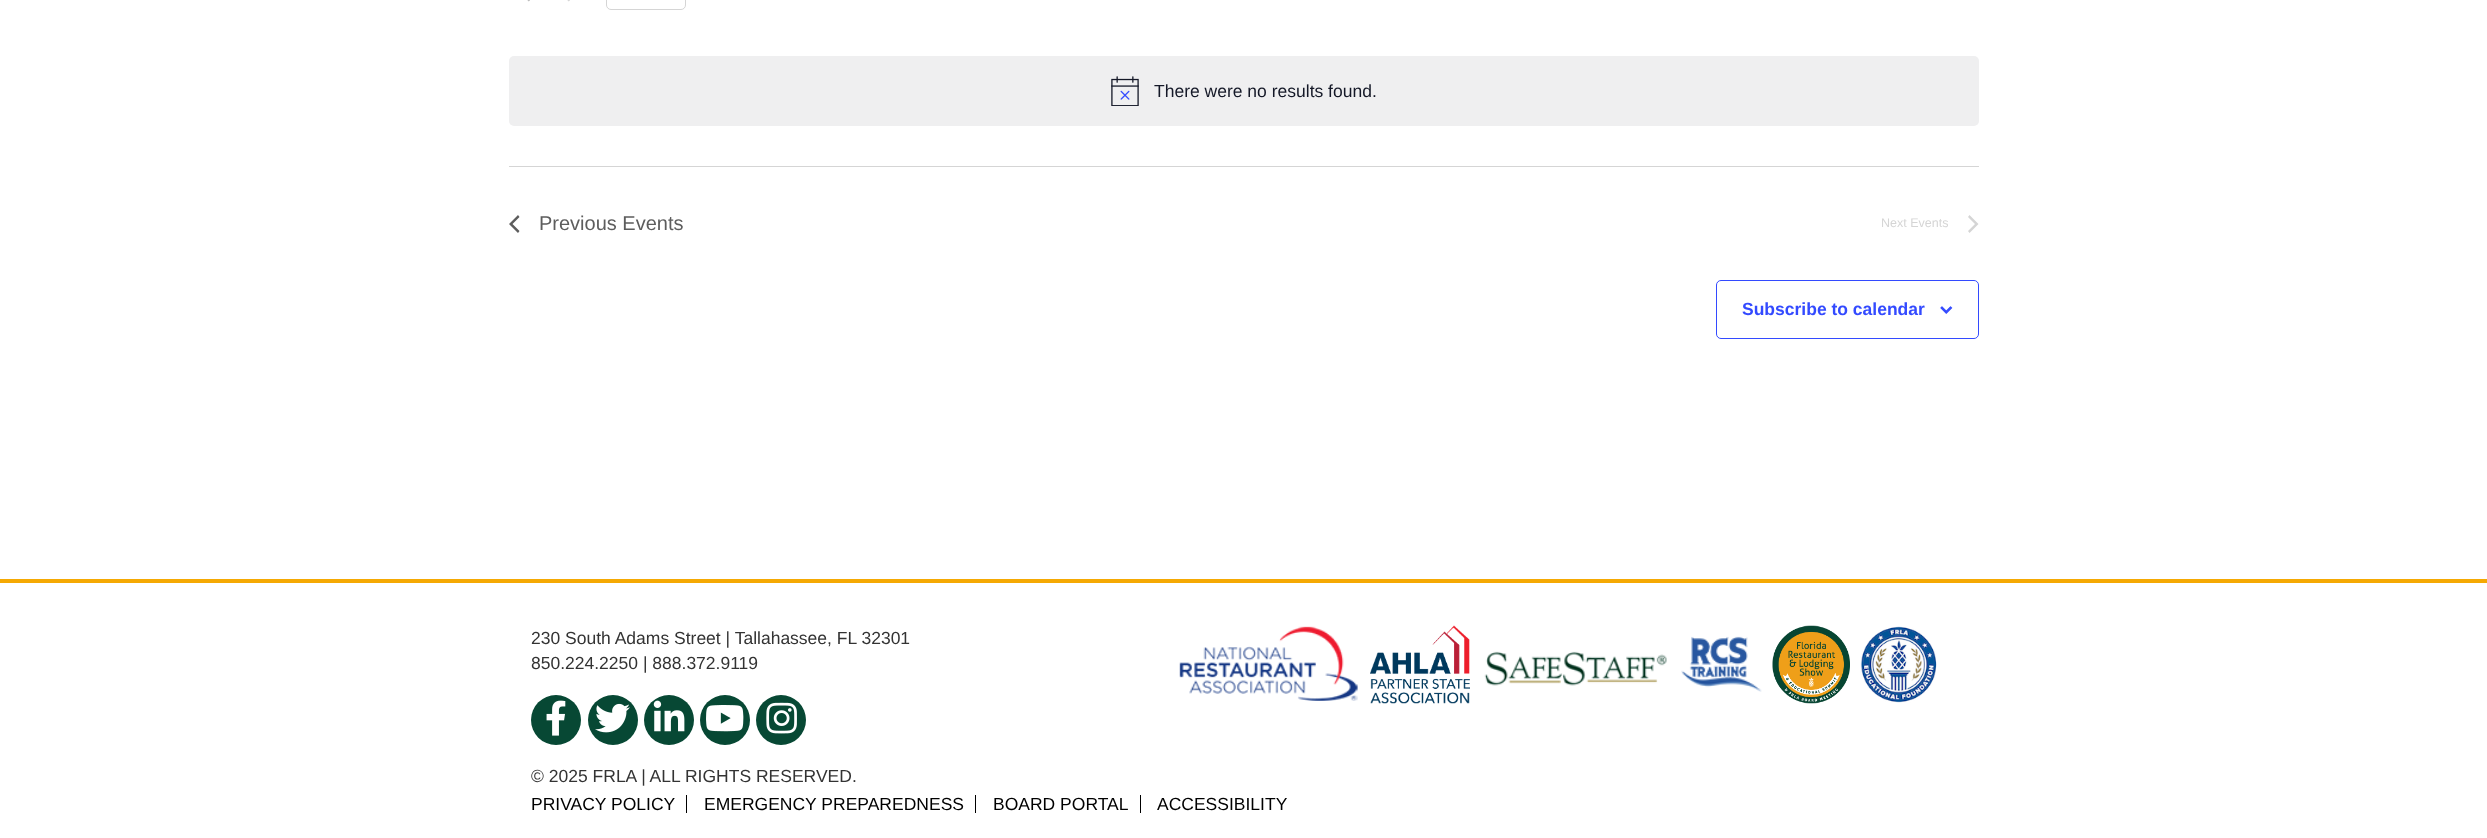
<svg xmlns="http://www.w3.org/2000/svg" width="2487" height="838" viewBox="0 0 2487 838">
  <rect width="100%" height="100%" fill="rgb(255,255,255)"/>
  <image x="527" y="0" width="3" height="2" href="pic1.png"/>
  <image x="567" y="0" width="3" height="2" href="pic2.png"/>
  <rect x="606.5" y="-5.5" width="79" height="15" rx="4.5" fill="none" stroke="rgb(213,213,213)"/>
  <rect x="509" y="56" width="1470" height="70" rx="5" fill="rgb(239,239,240)"/>
  <image x="1111" y="76" width="28" height="30" href="pic3.png"/>
  <text x="1154" y="97" font-family="Liberation Sans" font-size="17.5" fill="rgb(20,24,39)">There were no results found.</text>
  <rect x="509" y="166" width="1470" height="1" fill="rgb(213,213,213)"/>
  <path d="M519.5 231L518 233L509 224L518 215L519.5 217L512.5 224Z" fill="rgb(93,93,93)"/>
  <text x="539" y="230" font-family="Liberation Sans" font-size="20" fill="rgb(93,93,93)">Previous Events</text>
  <text x="1881" y="227" font-family="Liberation Sans" font-size="12.5" fill="rgb(213,213,213)">Next Events</text>
  <path d="M1968 217L1969.5 215L1978.5 224L1969.5 233L1968 231L1975 224Z" fill="rgb(213,213,213)"/>
  <rect x="1716.5" y="280.5" width="262" height="58" rx="4.5" fill="none" stroke="rgb(51,74,255)"/>
  <text x="1742" y="315" font-family="Liberation Sans" font-size="17.5" font-weight="bold" fill="rgb(51,74,255)">Subscribe to calendar</text>
  <image x="1940" y="306" width="13" height="8" href="pic4.png"/>
  <rect x="0" y="579" width="2487" height="4" fill="rgb(245,169,3)"/>
  <g font-family="Liberation Sans" font-size="17.5" fill="rgb(51,51,51)">
    <text>
      <tspan x="531" y="644">230 South Adams Street | Tallahassee, FL 32301</tspan>
      <tspan x="531" y="669">850.224.2250 | 888.372.9119</tspan>
    </text>
  </g>
  <circle cx="556" cy="720" r="25" fill="rgb(7,72,52)"/>
  <image x="546" y="700" width="20" height="36" href="pic5.png"/>
  <circle cx="613" cy="720" r="25" fill="rgb(7,72,52)"/>
  <image x="595" y="703" width="35" height="30" href="pic6.png"/>
  <circle cx="669" cy="720" r="25" fill="rgb(7,72,52)"/>
  <image x="653" y="700" width="32" height="32" href="pic7.png"/>
  <circle cx="725" cy="720" r="25" fill="rgb(7,72,52)"/>
  <image x="706" y="705" width="38" height="27" href="pic8.png"/>
  <circle cx="781" cy="720" r="25" fill="rgb(7,72,52)"/>
  <image x="766" y="702" width="31" height="32" href="pic9.png"/>
  <text x="531" y="782" font-family="Liberation Sans" font-size="17.5" fill="rgb(51,51,51)">© 2025 FRLA | ALL RIGHTS RESERVED.</text>
  <image x="1179" y="626" width="179" height="75" href="pic10.png"/>
  <image x="1370" y="625" width="100" height="79" href="pic11.png"/>
  <image x="1484" y="651" width="183" height="35" href="pic12.png"/>
  <image x="1681" y="636" width="81" height="56" href="pic13.png"/>
  <image x="1772" y="625" width="78" height="79" href="pic14.png"/>
  <image x="1860" y="626" width="77" height="77" href="pic15.png"/>
  <rect x="686" y="795" width="1" height="18" fill="rgb(0,0,0)"/>
  <text x="531" y="810" font-family="Liberation Sans" font-size="17.5" fill="rgb(0,0,0)">PRIVACY POLICY</text>
  <rect x="975" y="795" width="1" height="18" fill="rgb(0,0,0)"/>
  <text x="704" y="810" font-family="Liberation Sans" font-size="17.5" fill="rgb(0,0,0)">EMERGENCY PREPAREDNESS</text>
  <rect x="1140" y="795" width="1" height="18" fill="rgb(0,0,0)"/>
  <g font-family="Liberation Sans" font-size="17.5" fill="rgb(0,0,0)">
    <text x="993" y="810">BOARD PORTAL</text>
    <text x="1157" y="810">ACCESSIBILITY</text>
  </g>
</svg>
